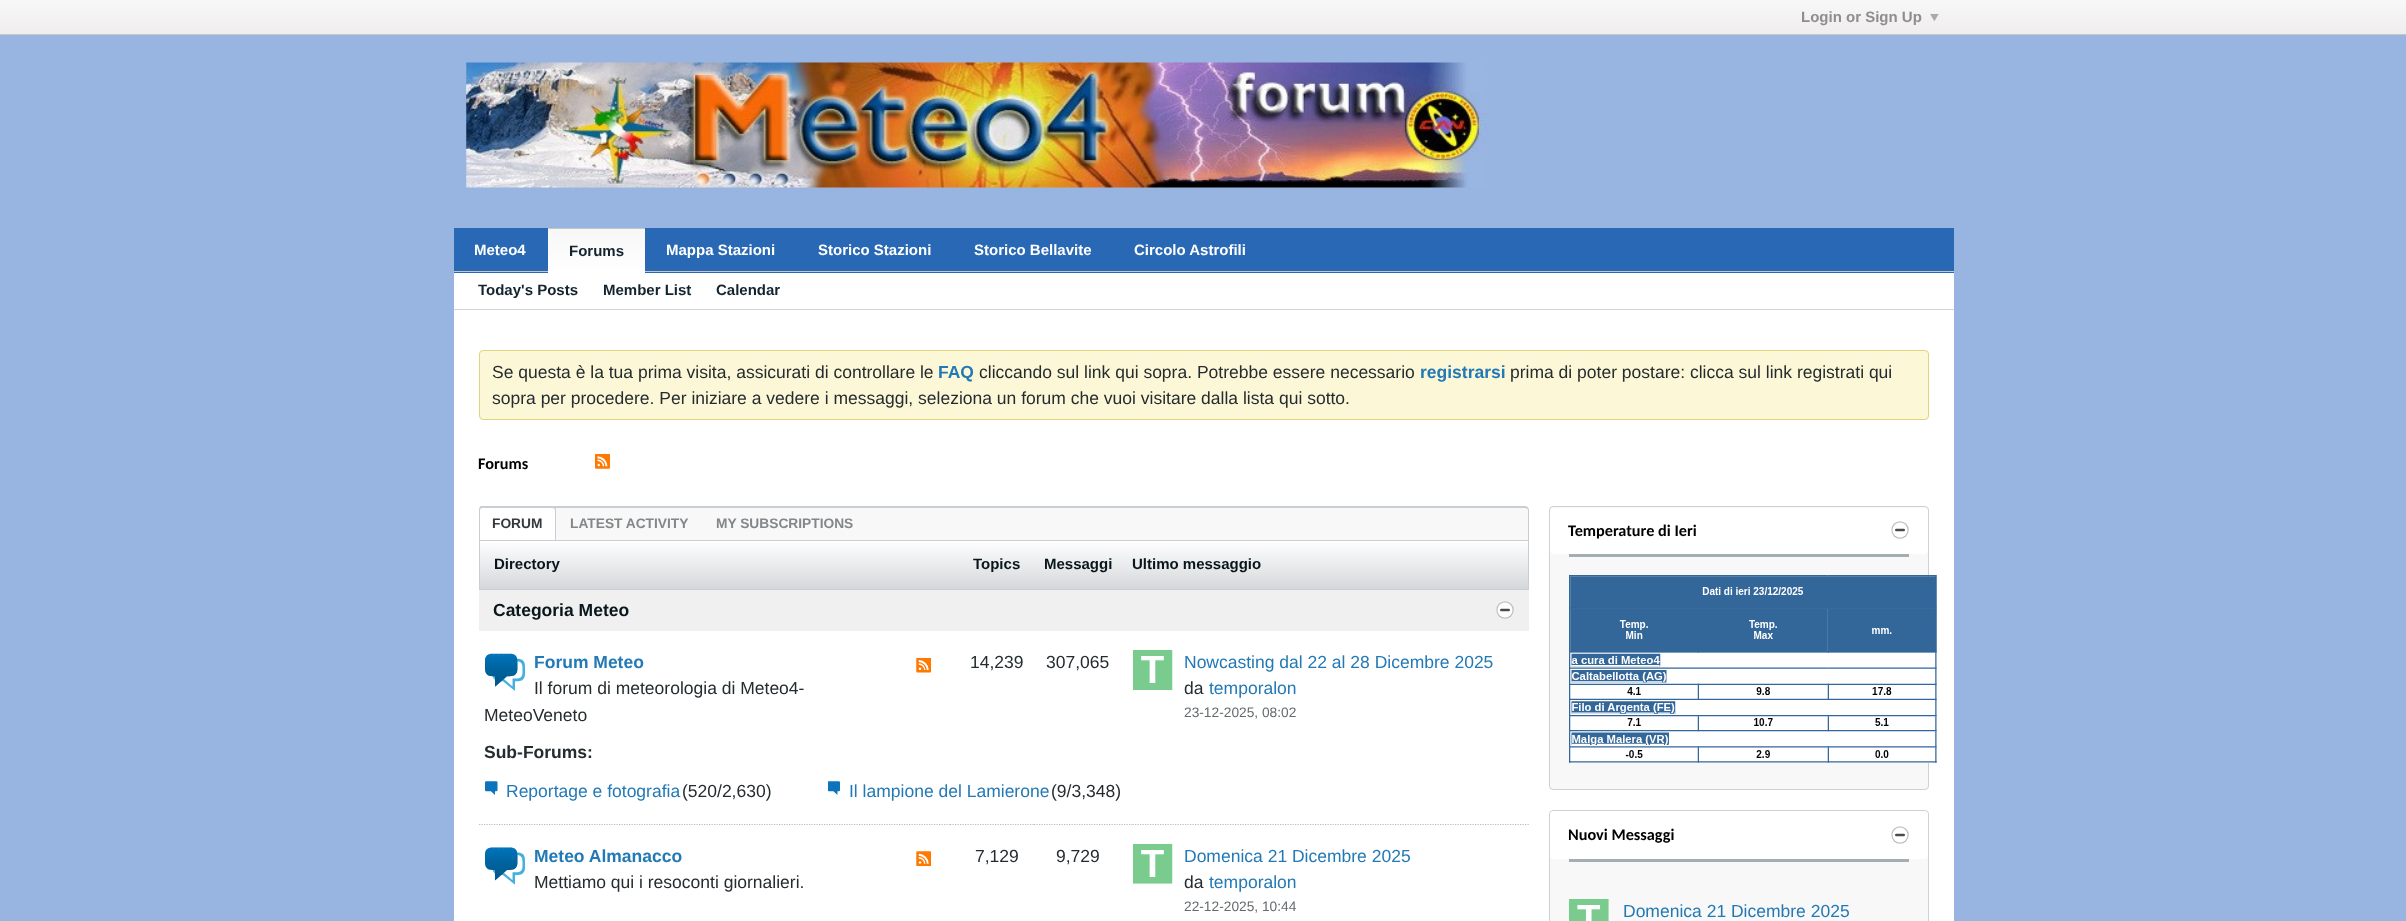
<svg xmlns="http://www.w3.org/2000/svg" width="2406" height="921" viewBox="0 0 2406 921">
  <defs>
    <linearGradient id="g1" gradientUnits="userSpaceOnUse" x1="1203" y1="0" x2="1203" y2="34"><stop offset="0" stop-color="rgb(248,248,248)"/><stop offset="1" stop-color="rgb(239,237,238)"/></linearGradient>
    <linearGradient id="g2" gradientUnits="userSpaceOnUse" x1="596" y1="185" x2="596" y2="229"><stop offset="0" stop-color="rgb(247,247,247)"/><stop offset="1" stop-color="rgb(255,255,255)"/></linearGradient>
    <linearGradient id="g3" gradientUnits="userSpaceOnUse" x1="596" y1="229" x2="596" y2="273"><stop offset="0" stop-color="rgb(247,247,247)"/><stop offset="1" stop-color="rgb(255,255,255)"/></linearGradient>
    <linearGradient id="g4" gradientUnits="userSpaceOnUse" x1="1004" y1="541" x2="1004" y2="589"><stop offset="0" stop-color="rgb(254,254,255)"/><stop offset="1" stop-color="rgb(213,216,218)"/></linearGradient>
  </defs>
  <rect width="100%" height="100%" fill="rgb(152,181,226)"/>
  <rect x="0" y="0" width="2406" height="34" fill="url(#g1)"/>
  <rect x="0" y="34" width="2406" height="1" fill="rgb(199,200,201)"/>
  <text x="1801" y="22" font-family="Liberation Sans" font-size="15" font-weight="bold" fill="rgb(142,142,142)">Login or Sign Up</text>
  <image x="1930" y="14" width="9" height="7" href="pic1.png"/>
  <image x="466" y="62" width="1021" height="126" href="pic2.png"/>
  <rect x="454" y="228" width="1500" height="45" fill="rgb(41,104,181)"/>
  <rect x="454" y="271" width="1500" height="1" fill="rgb(196,199,200)"/>
  <text x="474" y="255" font-family="Liberation Sans" font-size="15" font-weight="bold" fill="rgb(255,255,255)">Meteo4</text>
  <path d="M549 228H644C644.5 228 645 228.5 645 229H548C548 228.5 548.5 228 549 228Z" fill="url(#g2)"/>
  <rect x="548" y="229" width="97" height="44" fill="url(#g3)"/>
  <rect x="549" y="228" width="96" height="1" fill="rgb(196,199,200)"/>
  <text x="569" y="256" font-family="Liberation Sans" font-size="15" font-weight="bold" fill="rgb(19,36,47)">Forums</text>
  <g font-family="Liberation Sans" font-size="15" font-weight="bold" fill="rgb(255,255,255)">
    <text x="666" y="255">Mappa Stazioni</text>
    <text x="818" y="255">Storico Stazioni</text>
    <text x="974" y="255">Storico Bellavite</text>
    <text x="1134" y="255">Circolo Astrofili</text>
  </g>
  <rect x="454" y="273" width="1500" height="36" fill="rgb(255,255,255)"/>
  <rect x="454" y="309" width="1500" height="1" fill="rgb(211,213,214)"/>
  <g font-family="Liberation Sans" font-size="15" font-weight="bold" fill="rgb(19,36,47)">
    <text x="478" y="295">Today's Posts</text>
    <text x="603" y="295">Member List</text>
    <text x="716" y="295">Calendar</text>
  </g>
  <rect x="454" y="310" width="1500" height="611" fill="rgb(255,255,255)"/>
  <rect x="479.5" y="350.5" width="1449" height="69" rx="3.5" fill="rgb(252,247,215)" stroke="rgb(225,212,126)"/>
  <text x="492" y="378" font-family="Liberation Sans" font-size="17.5" fill="rgb(37,44,47)">Se questa è la tua prima visita, assicurati di controllare le</text>
  <text x="938" y="378" font-family="Liberation Sans" font-size="17.5" font-weight="bold" fill="rgb(35,121,181)">FAQ</text>
  <text x="979" y="378" font-family="Liberation Sans" font-size="17.5" fill="rgb(37,44,47)">cliccando sul link qui sopra. Potrebbe essere necessario</text>
  <text x="1420" y="378" font-family="Liberation Sans" font-size="17.5" font-weight="bold" fill="rgb(35,121,181)">registrarsi</text>
  <g font-family="Liberation Sans" font-size="17.5" fill="rgb(37,44,47)">
    <text x="1510" y="378">prima di poter postare: clicca sul link registrati qui</text>
    <text x="492" y="404">sopra per procedere. Per iniziare a vedere i messaggi, seleziona un forum che vuoi visitare dalla lista qui sotto.</text>
  </g>
  <text x="478" y="469" font-family="Carlito" font-size="16.25" font-weight="bold" fill="rgb(0,0,0)">Forums</text>
  <image x="595" y="454" width="15" height="15" href="pic3.png"/>
  <path d="M483 506H1525C1527 506 1529 508 1529 510V540H479V510C479 508 481 506 483 506Z" fill="rgb(248,248,248)"/>
  <path d="M482 506H1525C1527 506 1529 508 1529 510V540H479V510C479 508 480 506 482 506ZM482 508H1525C1526 508 1528 509 1528 510V540H480V510C480 509 481 508 482 508Z" fill="rgb(201,206,210)" fill-rule="evenodd"/>
  <path d="M484 508H1524C1526 508 1528 510 1528 512V540H480V512C480 510 482 508 484 508Z" fill="rgb(248,248,248)"/>
  <path d="M483 506H552C554 506 556 508 556 510V540H479V510C479 508 481 506 483 506Z" fill="rgb(255,255,255)"/>
  <path d="M482 506H552C555 506 556 508 556 510V540H479V510C479 508 480 506 482 506ZM482 508H552C554 508 555 509 555 510V540H480V510C480 509 481 508 482 508Z" fill="rgb(201,206,210)" fill-rule="evenodd"/>
  <text x="492" y="528" font-family="Liberation Sans" font-size="13.75" font-weight="bold" fill="rgb(52,58,61)">FORUM</text>
  <g font-family="Liberation Sans" font-size="13.75" font-weight="bold" fill="rgb(131,135,137)">
    <text x="570" y="528">LATEST ACTIVITY</text>
    <text x="716" y="528">MY SUBSCRIPTIONS</text>
  </g>
  <rect x="480" y="543" width="1048" height="46" fill="url(#g4)"/>
  <rect x="479" y="540" width="1050" height="1" fill="rgb(201,206,210)"/>
  <rect x="479" y="589" width="1050" height="1" fill="rgb(201,206,210)"/>
  <rect x="479" y="540" width="1" height="50" fill="rgb(201,206,210)"/>
  <g font-family="Liberation Sans" font-size="15" font-weight="bold" fill="rgb(9,22,27)">
    <text x="494" y="569">Directory</text>
    <text x="973" y="569">Topics</text>
    <text x="1044" y="569">Messaggi</text>
  </g>
  <rect x="1528" y="540" width="1" height="50" fill="rgb(201,206,210)"/>
  <text x="1132" y="569" font-family="Liberation Sans" font-size="15" font-weight="bold" fill="rgb(9,22,27)">Ultimo messaggio</text>
  <rect x="479" y="590" width="1050" height="41" fill="rgb(240,240,240)"/>
  <text x="493" y="616" font-family="Liberation Sans" font-size="17.5" font-weight="bold" fill="rgb(9,22,27)">Categoria Meteo</text>
  <image x="1496" y="601" width="18" height="18" href="pic4.png"/>
  <image x="485" y="653" width="40" height="38" href="pic5.png"/>
  <text x="534" y="668" font-family="Liberation Sans" font-size="17.5" font-weight="bold" fill="rgb(35,121,181)">Forum Meteo</text>
  <g font-family="Liberation Sans" font-size="17.5" fill="rgb(37,44,47)">
    <text x="534" y="694">Il forum di meteorologia di Meteo4-</text>
    <text x="484" y="721">MeteoVeneto</text>
  </g>
  <image x="916" y="658" width="15" height="15" href="pic6.png"/>
  <g font-family="Liberation Sans" font-size="17.5" fill="rgb(37,44,47)">
    <text x="970" y="668">14,239</text>
    <text x="1046" y="668">307,065</text>
  </g>
  <image x="1133" y="650" width="40" height="40" href="pic7.png"/>
  <text x="1184" y="668" font-family="Liberation Sans" font-size="17.5" fill="rgb(35,121,181)">Nowcasting dal 22 al 28 Dicembre 2025</text>
  <text x="1184" y="694" font-family="Liberation Sans" font-size="17.5" fill="rgb(37,44,47)">da</text>
  <text x="1209" y="694" font-family="Liberation Sans" font-size="17.5" fill="rgb(35,121,181)">temporalon</text>
  <text x="1184" y="717" font-family="Liberation Sans" font-size="13.75" fill="rgb(101,106,109)">23-12-2025, 08:02</text>
  <text x="484" y="758" font-family="Liberation Sans" font-size="17.5" font-weight="bold" fill="rgb(37,44,47)">Sub-Forums:</text>
  <image x="485" y="781" width="13" height="14" href="pic8.png"/>
  <text x="506" y="797" font-family="Liberation Sans" font-size="17.5" fill="rgb(35,121,181)">Reportage e fotografia</text>
  <text x="682" y="797" font-family="Liberation Sans" font-size="17.5" fill="rgb(37,44,47)">(520/2,630)</text>
  <image x="828" y="781" width="12" height="14" href="pic9.png"/>
  <text x="849" y="797" font-family="Liberation Sans" font-size="17.5" fill="rgb(35,121,181)">Il lampione del Lamierone</text>
  <text x="1051" y="797" font-family="Liberation Sans" font-size="17.5" fill="rgb(37,44,47)">(9/3,348)</text>
  <path d="M479 824.5H950" fill="none" stroke="rgb(183,187,206)" stroke-width="1.2" stroke-dasharray="1.25 1.25"/>
  <image x="485" y="847" width="40" height="38" href="pic10.png"/>
  <text x="534" y="862" font-family="Liberation Sans" font-size="17.5" font-weight="bold" fill="rgb(35,121,181)">Meteo Almanacco</text>
  <text x="534" y="888" font-family="Liberation Sans" font-size="17.5" fill="rgb(37,44,47)">Mettiamo qui i resoconti giornalieri.</text>
  <image x="916" y="851" width="15" height="15" href="pic11.png"/>
  <path d="M950 824.5H1034" fill="none" stroke="rgb(183,187,206)" stroke-width="1.2" stroke-dasharray="1.25 1.25"/>
  <text x="975" y="862" font-family="Liberation Sans" font-size="17.5" fill="rgb(37,44,47)">7,129</text>
  <path d="M1034 824.5H1132.5" fill="none" stroke="rgb(183,187,206)" stroke-width="1.2" stroke-dasharray="1.25 1.25"/>
  <text x="1056" y="862" font-family="Liberation Sans" font-size="17.5" fill="rgb(37,44,47)">9,729</text>
  <path d="M1132.5 824.5H1529" fill="none" stroke="rgb(183,187,206)" stroke-width="1.2" stroke-dasharray="1.25 1.25"/>
  <image x="1133" y="844" width="40" height="40" href="pic12.png"/>
  <text x="1184" y="862" font-family="Liberation Sans" font-size="17.5" fill="rgb(35,121,181)">Domenica 21 Dicembre 2025</text>
  <text x="1184" y="888" font-family="Liberation Sans" font-size="17.5" fill="rgb(37,44,47)">da</text>
  <text x="1209" y="888" font-family="Liberation Sans" font-size="17.5" fill="rgb(35,121,181)">temporalon</text>
  <text x="1184" y="911" font-family="Liberation Sans" font-size="13.75" fill="rgb(101,106,109)">22-12-2025, 10:44</text>
  <rect x="1549.5" y="506.5" width="379" height="283" rx="3.5" fill="rgb(248,248,248)" stroke="rgb(204,209,213)"/>
  <rect x="1550" y="508" width="378" height="46" rx="4" fill="rgb(255,255,255)"/>
  <text x="1568" y="536" font-family="Carlito" font-size="16.25" font-weight="bold" fill="rgb(0,0,0)">Temperature di Ieri</text>
  <image x="1891" y="521" width="18" height="18" href="pic13.png"/>
  <rect x="1569" y="554" width="340" height="3" fill="rgb(162,174,179)"/>
  <image x="1569" y="575" width="368" height="188" href="pic14.png"/>
  <rect x="1549.5" y="810.5" width="379" height="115" rx="3.5" fill="rgb(248,248,248)" stroke="rgb(204,209,213)"/>
  <rect x="1550" y="811" width="378" height="48" rx="4" fill="rgb(255,255,255)"/>
  <text x="1568" y="840" font-family="Carlito" font-size="16.25" font-weight="bold" fill="rgb(0,0,0)">Nuovi Messaggi</text>
  <image x="1891" y="826" width="18" height="18" href="pic13.png"/>
  <rect x="1569" y="859" width="340" height="3" fill="rgb(162,174,179)"/>
  <image x="1569" y="899" width="40" height="22" href="pic15.png"/>
  <text x="1623" y="917" font-family="Liberation Sans" font-size="17.5" fill="rgb(35,121,181)">Domenica 21 Dicembre 2025</text>
</svg>
